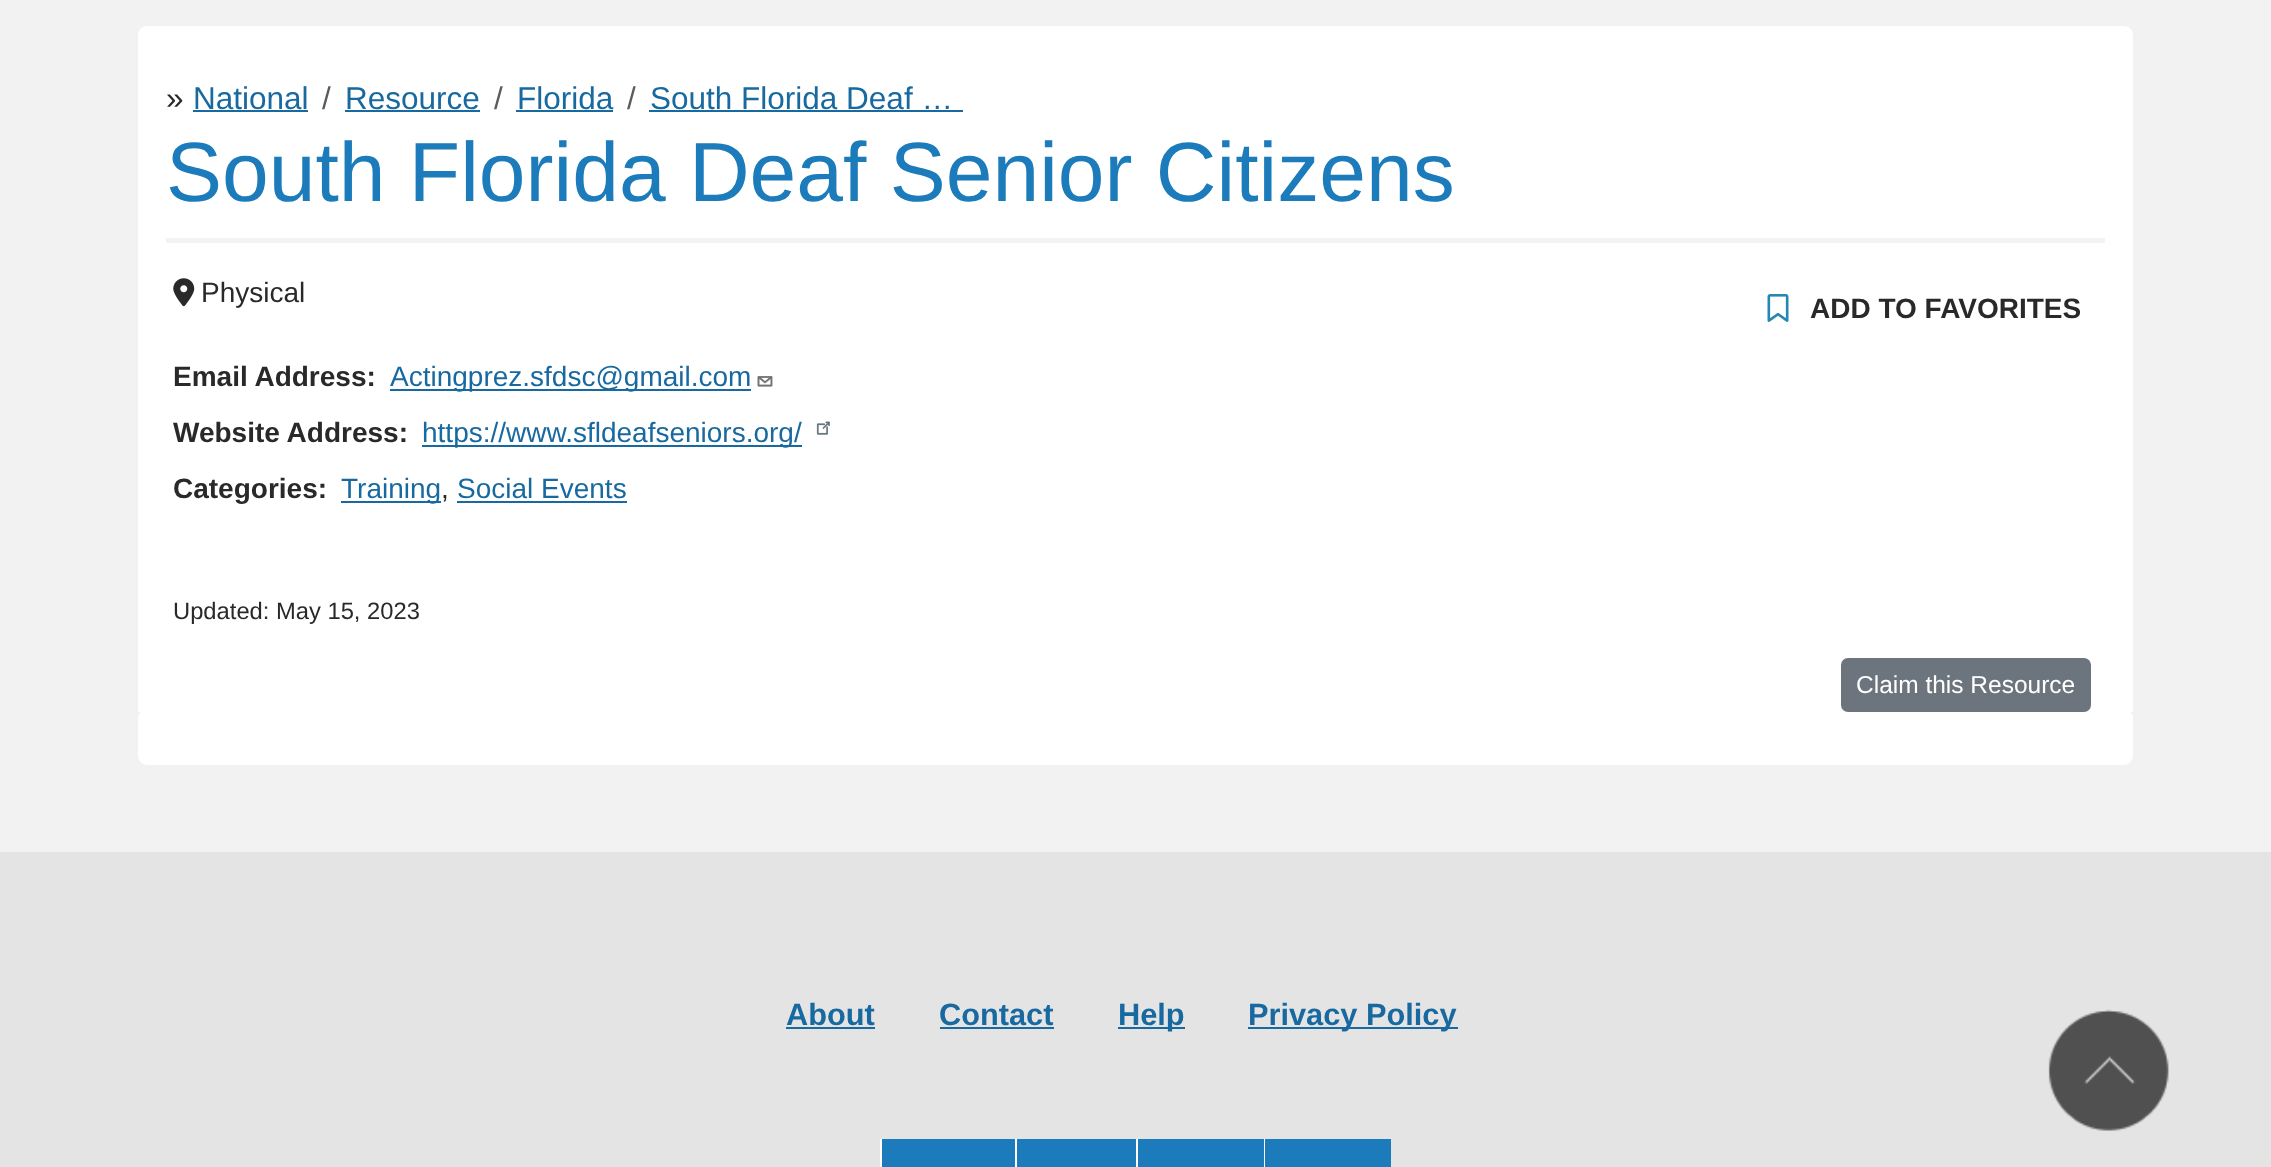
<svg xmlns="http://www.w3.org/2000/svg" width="2271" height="1167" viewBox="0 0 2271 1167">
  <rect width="100%" height="100%" fill="rgb(242,242,242)"/>
  <path d="M147 26H2124C2129 26 2133 30 2133 35V712H138V35C138 30 142 26 147 26Z" fill="rgb(255,255,255)"/>
  <text x="166" y="109" font-family="Liberation Sans" font-size="31.5" fill="rgb(41,41,41)">»</text>
  <text x="193" y="109" font-family="Liberation Sans" font-size="31.5" fill="rgb(24,105,160)">National</text>
  <rect x="193" y="110" width="115" height="2" fill="rgb(24,105,160)"/>
  <text x="322" y="109" font-family="Liberation Sans" font-size="31.5" fill="rgb(89,92,95)">/</text>
  <text x="345" y="109" font-family="Liberation Sans" font-size="31.5" fill="rgb(24,105,160)">Resource</text>
  <rect x="345" y="110" width="135" height="2" fill="rgb(24,105,160)"/>
  <text x="494" y="109" font-family="Liberation Sans" font-size="31.5" fill="rgb(89,92,95)">/</text>
  <text x="517" y="109" font-family="Liberation Sans" font-size="31.5" fill="rgb(24,105,160)">Florida</text>
  <rect x="516" y="110" width="97" height="2" fill="rgb(24,105,160)"/>
  <text x="627" y="109" font-family="Liberation Sans" font-size="31.5" fill="rgb(89,92,95)">/</text>
  <text x="650" y="109" font-family="Liberation Sans" font-size="31.5" fill="rgb(24,105,160)">South Florida Deaf …</text>
  <rect x="649" y="110" width="314" height="2" fill="rgb(24,105,160)"/>
  <rect x="166" y="238" width="1939" height="5" fill="rgb(243,243,243)"/>
  <text x="166" y="201" font-family="Liberation Sans" font-size="84" fill="rgb(28,123,186)">South Florida Deaf Senior Citizens</text>
  <image x="173" y="278" width="22" height="29" href="pic1.png"/>
  <text x="201" y="302" font-family="Liberation Sans" font-size="28" fill="rgb(41,41,41)">Physical</text>
  <text x="173" y="386" font-family="Liberation Sans" font-size="28" font-weight="bold" fill="rgb(41,41,41)">Email Address:</text>
  <rect x="390" y="389" width="361" height="2" fill="rgb(24,105,160)"/>
  <text x="390" y="386" font-family="Liberation Sans" font-size="28" fill="rgb(24,105,160)">Actingprez.sfdsc@gmail.com</text>
  <image x="757" y="376" width="16" height="11" href="pic2.png"/>
  <text x="173" y="442" font-family="Liberation Sans" font-size="28" font-weight="bold" fill="rgb(41,41,41)">Website Address:</text>
  <rect x="422" y="445" width="380" height="2" fill="rgb(24,105,160)"/>
  <text x="422" y="442" font-family="Liberation Sans" font-size="28" fill="rgb(24,105,160)">https://www.sfldeafseniors.org/</text>
  <image x="816" y="421" width="14" height="14" href="pic3.png"/>
  <text x="173" y="498" font-family="Liberation Sans" font-size="28" font-weight="bold" fill="rgb(41,41,41)">Categories:</text>
  <rect x="341" y="501" width="100" height="2" fill="rgb(24,105,160)"/>
  <text x="341" y="498" font-family="Liberation Sans" font-size="28" fill="rgb(24,105,160)">Training</text>
  <text x="441" y="498" font-family="Liberation Sans" font-size="28" fill="rgb(41,41,41)">,</text>
  <text x="457" y="498" font-family="Liberation Sans" font-size="28" fill="rgb(24,105,160)">Social Events</text>
  <rect x="457" y="501" width="170" height="2" fill="rgb(24,105,160)"/>
  <image x="1767" y="294" width="22" height="28" href="pic4.png"/>
  <text x="1810" y="318" font-family="Liberation Sans" font-size="28" font-weight="bold" fill="rgb(41,41,41)">ADD TO FAVORITES</text>
  <text x="173" y="619" font-family="Liberation Sans" font-size="23.75" fill="rgb(41,41,41)">Updated: May 15, 2023</text>
  <rect x="138" y="709" width="1995" height="56" rx="9" fill="rgb(255,255,255)"/>
  <rect x="1842" y="659" width="248" height="52" rx="6" fill="rgb(108,117,125)" stroke="rgb(108,117,125)" stroke-width="2"/>
  <text x="1856" y="693" font-family="Liberation Sans" font-size="24.5" fill="rgb(255,255,255)">Claim this Resource</text>
  <rect x="0" y="852" width="2271" height="315" fill="rgb(228,228,228)"/>
  <text x="786" y="1025" font-family="Liberation Sans" font-size="30.75" font-weight="bold" fill="rgb(24,105,160)">About</text>
  <rect x="786" y="1027" width="89" height="2" fill="rgb(24,105,160)"/>
  <text x="939" y="1025" font-family="Liberation Sans" font-size="30.75" font-weight="bold" fill="rgb(24,105,160)">Contact</text>
  <rect x="940" y="1027" width="114" height="2" fill="rgb(24,105,160)"/>
  <rect x="1118" y="1027" width="67" height="2" fill="rgb(24,105,160)"/>
  <text x="1118" y="1025" font-family="Liberation Sans" font-size="30.75" font-weight="bold" fill="rgb(24,105,160)">Help</text>
  <rect x="1248" y="1027" width="210" height="2" fill="rgb(24,105,160)"/>
  <text x="1248" y="1025" font-family="Liberation Sans" font-size="30.75" font-weight="bold" fill="rgb(24,105,160)">Privacy Policy</text>
  <rect x="880" y="1139" width="2" height="28" fill="rgb(255,255,255)"/>
  <rect x="882" y="1139" width="133" height="28" fill="rgb(28,123,186)"/>
  <rect x="1015" y="1139" width="2" height="28" fill="rgb(255,255,255)"/>
  <rect x="1017" y="1139" width="119" height="28" fill="rgb(28,123,186)"/>
  <rect x="1136" y="1139" width="2" height="28" fill="rgb(255,255,255)"/>
  <rect x="1138" y="1139" width="126" height="28" fill="rgb(28,123,186)"/>
  <rect x="1264" y="1139" width="1" height="28" fill="rgb(255,255,255)"/>
  <rect x="1265" y="1139" width="126" height="28" fill="rgb(28,123,186)"/>
  <image x="2048" y="1009" width="121" height="122" href="pic5.png"/>
</svg>
